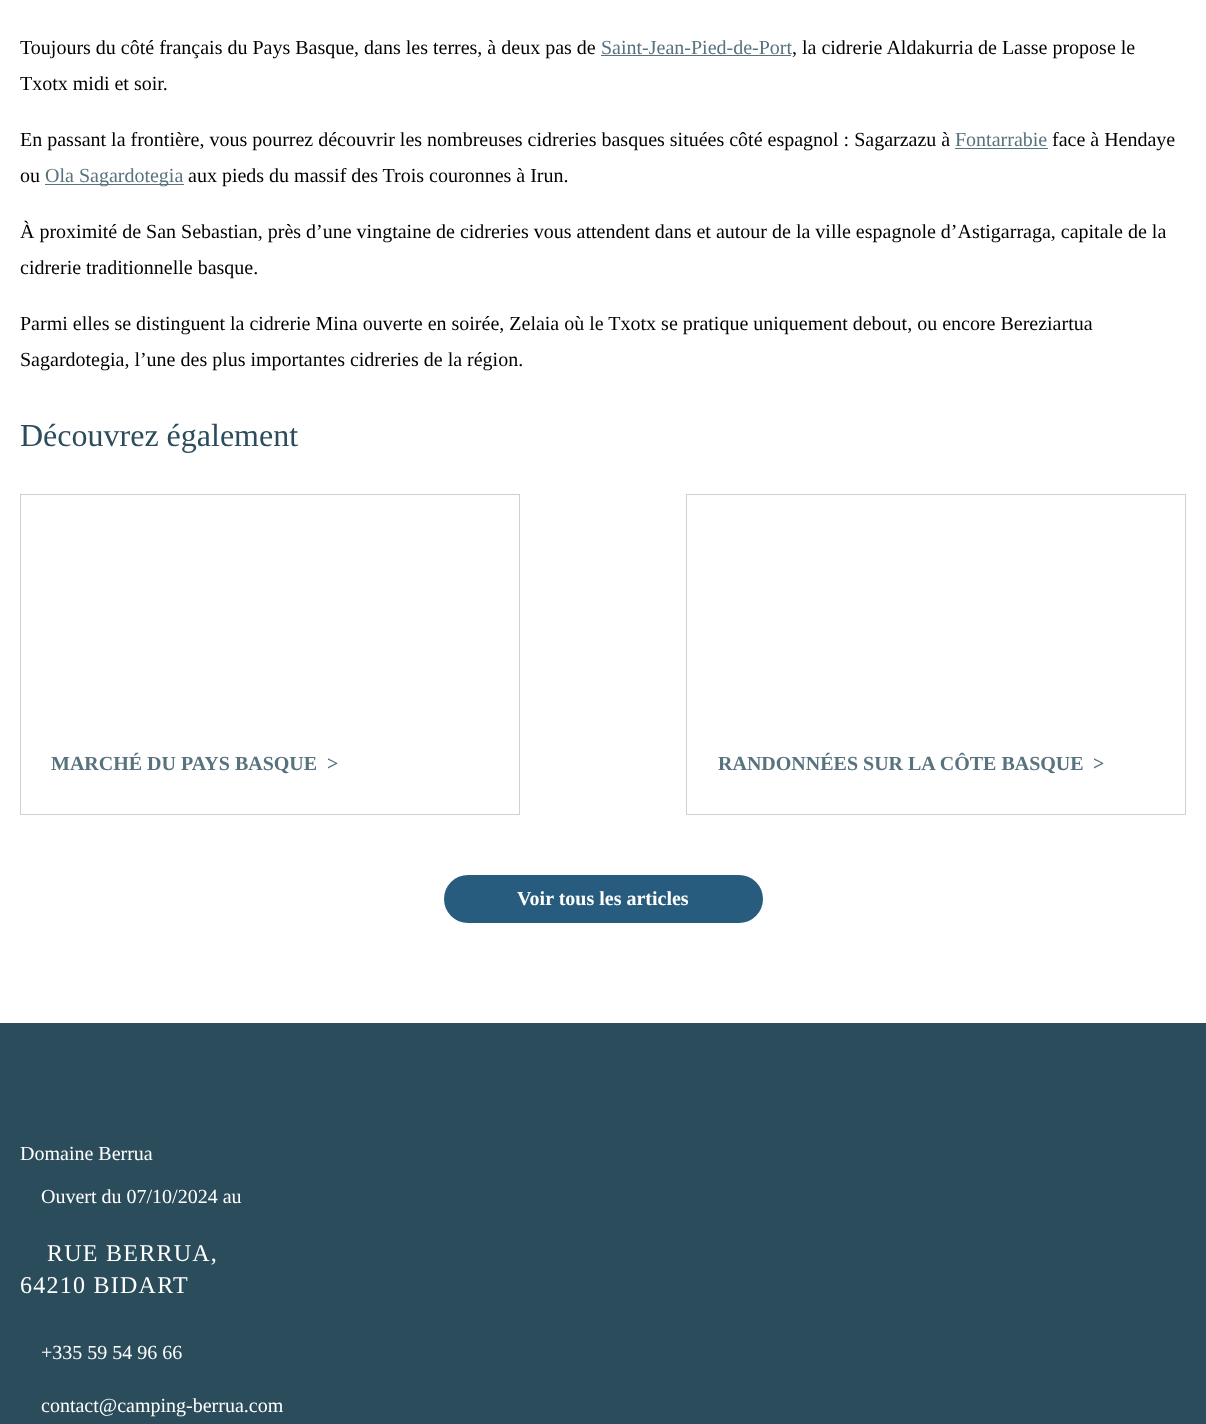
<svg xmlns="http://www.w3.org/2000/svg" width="1206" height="1424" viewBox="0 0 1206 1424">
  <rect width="100%" height="100%" fill="rgb(255,255,255)"/>
  <text x="20" y="54" font-family="Liberation Serif" font-size="20" fill="rgb(0,0,0)">Toujours du côté français du Pays Basque, dans les terres, à deux pas de</text>
  <text x="601" y="54" font-family="Liberation Serif" font-size="20" fill="rgb(88,114,126)">Saint-Jean-Pied-de-Port</text>
  <rect x="601" y="55" width="190" height="1" fill="rgb(88,114,126)"/>
  <g font-family="Liberation Serif" font-size="20" fill="rgb(0,0,0)">
    <text x="792" y="54">, la cidrerie Aldakurria de Lasse propose le</text>
    <text x="20" y="90">Txotx midi et soir.</text>
    <text x="20" y="146">En passant la frontière, vous pourrez découvrir les nombreuses cidreries basques situées côté espagnol : Sagarzazu à</text>
  </g>
  <text x="955" y="146" font-family="Liberation Serif" font-size="20" fill="rgb(88,114,126)">Fontarrabie</text>
  <rect x="955" y="148" width="93" height="1" fill="rgb(88,114,126)"/>
  <g font-family="Liberation Serif" font-size="20" fill="rgb(0,0,0)">
    <text x="1052" y="146">face à Hendaye</text>
    <text x="20" y="182">ou</text>
  </g>
  <rect x="45" y="184" width="139" height="1" fill="rgb(88,114,126)"/>
  <text x="45" y="182" font-family="Liberation Serif" font-size="20" fill="rgb(88,114,126)">Ola Sagardotegia</text>
  <g font-family="Liberation Serif" font-size="20" fill="rgb(0,0,0)">
    <text x="188" y="182">aux pieds du massif des Trois couronnes à Irun.</text>
    <text>
      <tspan x="20" y="238">À proximité de San Sebastian, près d’une vingtaine de cidreries vous attendent dans et autour de la ville espagnole d’Astigarraga, capitale de la</tspan>
      <tspan x="20" y="274">cidrerie traditionnelle basque.</tspan>
    </text>
    <text>
      <tspan x="20" y="330">Parmi elles se distinguent la cidrerie Mina ouverte en soirée, Zelaia où le Txotx se pratique uniquement debout, ou encore Bereziartua</tspan>
      <tspan x="20" y="366">Sagardotegia, l’une des plus importantes cidreries de la région.</tspan>
    </text>
  </g>
  <text x="20" y="446" font-family="Liberation Serif" font-size="32" fill="rgb(43,76,91)">Découvrez également</text>
  <rect x="20.5" y="494.5" width="499" height="320" fill="none" stroke="rgb(212,208,201)"/>
  <g font-family="Liberation Serif" font-size="20" font-weight="bold" fill="rgb(88,114,126)">
    <text x="51" y="770">MARCHÉ DU PAYS BASQUE</text>
    <text x="327" y="770">&gt;</text>
  </g>
  <rect x="686.5" y="494.5" width="499" height="320" fill="none" stroke="rgb(212,208,201)"/>
  <g font-family="Liberation Serif" font-size="20" font-weight="bold" fill="rgb(88,114,126)">
    <text x="718" y="770">RANDONNÉES SUR LA CÔTE BASQUE</text>
    <text x="1093" y="770">&gt;</text>
  </g>
  <rect x="444" y="875" width="319" height="48" rx="24" fill="rgb(39,92,126)"/>
  <text x="517" y="905" font-family="Liberation Serif" font-size="20" font-weight="bold" fill="rgb(255,255,255)">Voir tous les articles</text>
  <rect x="0" y="1023" width="1206" height="401" fill="rgb(43,76,91)"/>
  <g font-family="Liberation Serif" font-size="20" fill="rgb(255,255,255)">
    <text x="20" y="1160">Domaine Berrua</text>
    <text x="41" y="1203">Ouvert du 07/10/2024 au</text>
  </g>
  <g font-family="Liberation Serif" font-size="24" letter-spacing="1.25" fill="rgb(255,255,255)">
    <text x="47" y="1261">RUE BERRUA,</text>
    <text x="20" y="1293">64210 BIDART</text>
  </g>
  <g font-family="Liberation Serif" font-size="20" fill="rgb(255,255,255)">
    <text x="41" y="1359">+335 59 54 96 66</text>
    <text x="41" y="1412">contact@camping-berrua.com</text>
  </g>
</svg>
